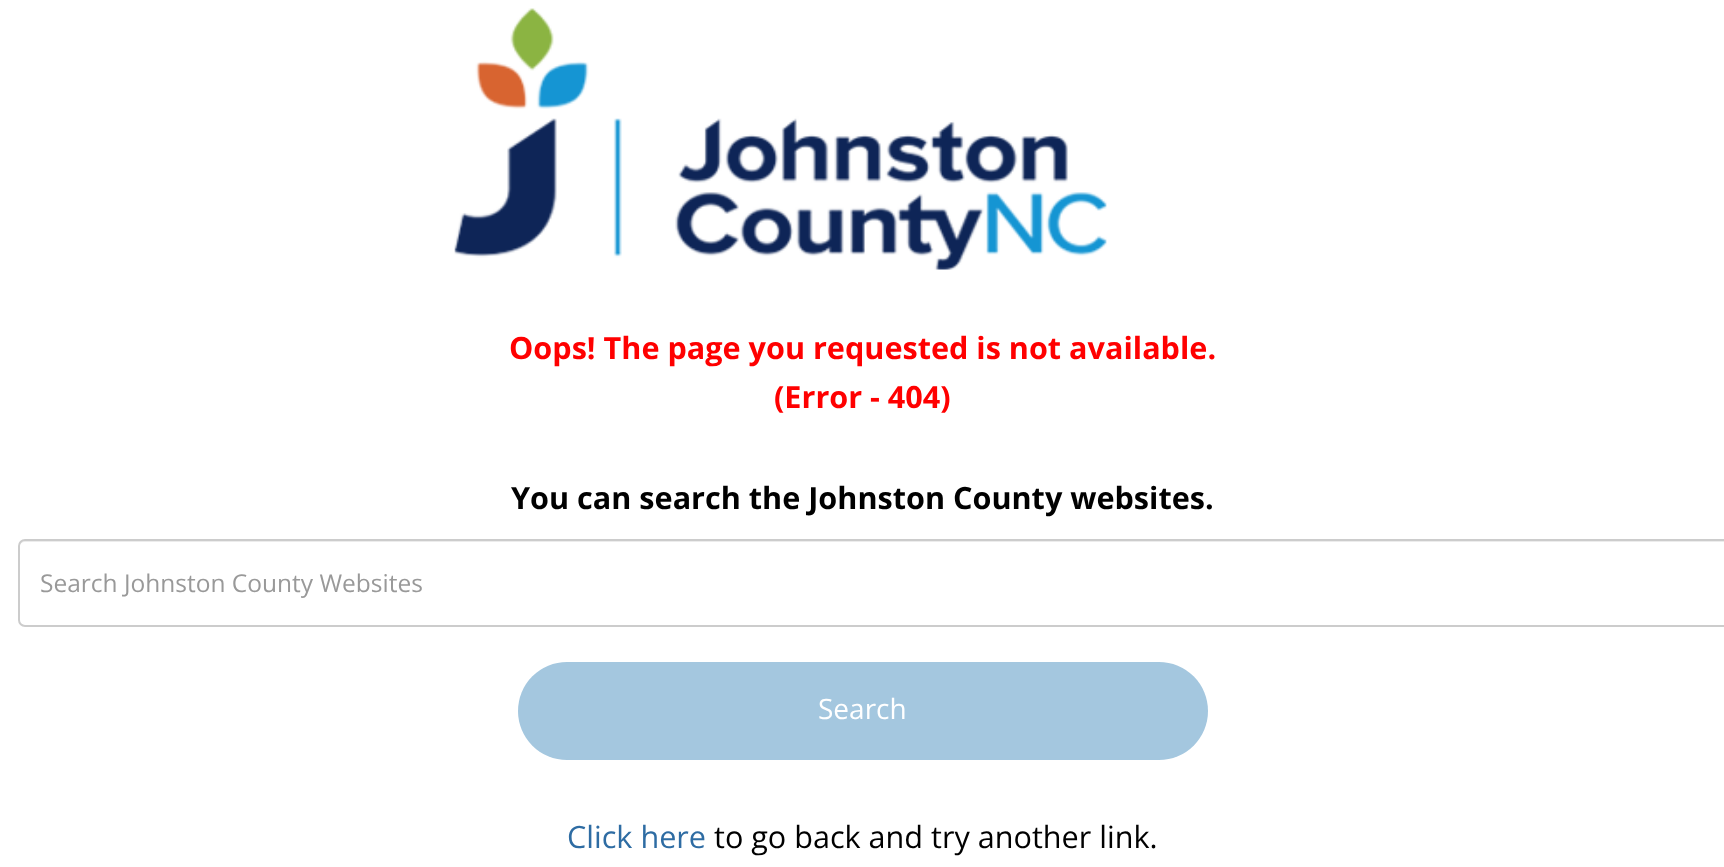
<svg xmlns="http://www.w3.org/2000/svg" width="1724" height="867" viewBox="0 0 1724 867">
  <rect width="100%" height="100%" fill="rgb(255,255,255)"/>
  <image x="454" y="8" width="653" height="262" href="pic1.png"/>
  <g font-family="Open Sans" font-size="30.6" font-weight="bold" fill="rgb(255,0,0)">
    <text x="509" y="359">Oops! The page you requested is not available.</text>
    <text x="774" y="408">(Error - 404)</text>
  </g>
  <text x="511" y="509" font-family="Open Sans" font-size="30.6" font-weight="bold" fill="rgb(0,0,0)">You can search the Johnston County websites.</text>
  <path d="M24 542H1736C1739 542 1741 545 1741 548C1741 545 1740 541 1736 541H24C20 541 19 545 19 548C19 545 22 542 24 542Z" fill="rgb(236,236,236)"/>
  <rect x="19" y="540" width="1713" height="86" rx="6" fill="none" stroke="rgb(204,204,204)" stroke-width="2"/>
  <text x="40" y="592" font-family="Open Sans" font-size="24.5" fill="rgb(153,153,153)">Search Johnston County Websites</text>
  <rect x="518" y="662" width="690" height="98" rx="49" fill="rgb(164,199,223)"/>
  <text x="818" y="719" font-family="Open Sans" font-size="28" fill="rgb(255,255,255)">Search</text>
  <text x="567" y="848" font-family="Open Sans" font-size="30.6" fill="rgb(46,108,163)">Click here</text>
  <text x="714" y="848" font-family="Open Sans" font-size="30.6" fill="rgb(0,0,0)">to go back and try another link.</text>
</svg>
